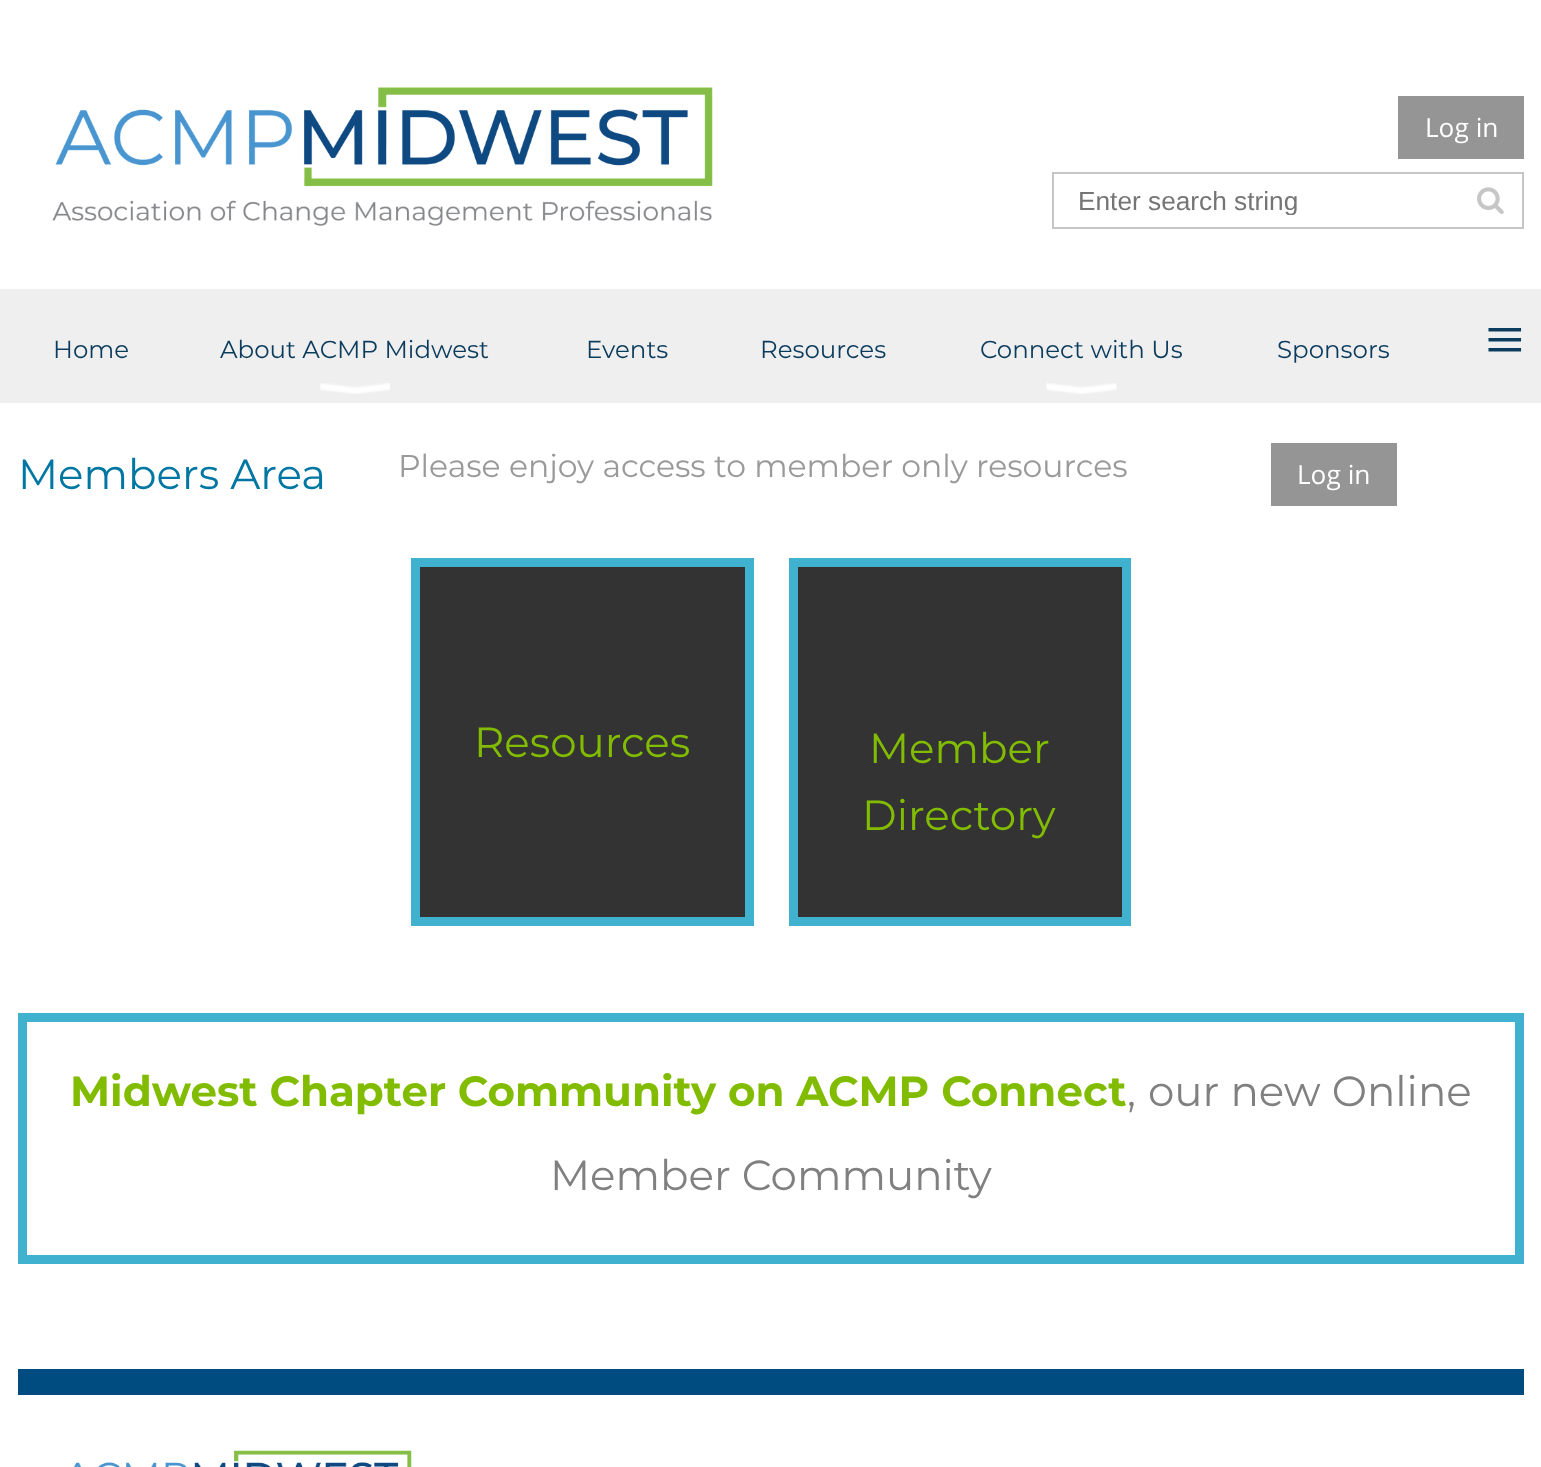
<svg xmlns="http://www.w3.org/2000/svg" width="1541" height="1467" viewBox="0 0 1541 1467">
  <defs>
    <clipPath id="clip1"><rect x="1078" y="186" width="383" height="29"/></clipPath>
  </defs>
  <rect width="100%" height="100%" fill="rgb(255,255,255)"/>
  <image x="52" y="87" width="661" height="139" href="pic1.png"/>
  <rect x="1398" y="96" width="126" height="63" fill="rgb(149,149,149)"/>
  <text x="1425" y="137" font-family="Open Sans" font-size="26.25" fill="rgb(255,255,255)">Log in</text>
  <rect x="1053" y="173" width="470" height="55" fill="none" stroke="rgb(198,198,198)" stroke-width="2"/>
  <g clip-path="url(#clip1)">
    <text x="1078" y="210" font-family="Liberation Sans" font-size="26.25" fill="rgb(117,117,117)">Enter search string</text>
  </g>
  <image x="1477" y="187" width="27" height="27" href="pic2.png"/>
  <rect x="0" y="289" width="1541" height="114" fill="rgb(239,239,239)"/>
  <g font-family="Montserrat" font-size="24.5" fill="rgb(11,60,93)">
    <text x="53" y="358">Home</text>
    <text x="220" y="358">About ACMP Midwest</text>
  </g>
  <image x="320" y="383" width="70" height="11" href="pic3.png"/>
  <g font-family="Montserrat" font-size="24.5" fill="rgb(11,60,93)">
    <text x="586" y="358">Events</text>
    <text x="760" y="358">Resources</text>
    <text x="980" y="358">Connect with Us</text>
  </g>
  <image x="1046" y="383" width="71" height="11" href="pic4.png"/>
  <text x="1277" y="358" font-family="Montserrat" font-size="24.5" fill="rgb(11,60,93)">Sponsors</text>
  <text x="1485" y="363" font-family="Liberation Serif" font-size="70" fill="rgb(11,60,93)">≡</text>
  <text x="18" y="489" font-family="Montserrat" font-size="42" fill="rgb(0,118,163)">Members Area</text>
  <text x="398" y="477" font-family="Montserrat" font-size="31.5" fill="rgb(153,153,153)">Please enjoy access to member only resources</text>
  <rect x="1271" y="443" width="126" height="63" fill="rgb(149,149,149)"/>
  <text x="1297" y="484" font-family="Open Sans" font-size="26.25" fill="rgb(255,255,255)">Log in</text>
  <rect x="415.5" y="562.5" width="334" height="359" fill="rgb(51,51,51)" stroke="rgb(64,178,207)" stroke-width="9"/>
  <text x="474" y="757" font-family="Montserrat" font-size="42" fill="rgb(130,188,0)">Resources</text>
  <rect x="793.5" y="562.5" width="333" height="359" fill="rgb(51,51,51)" stroke="rgb(64,178,207)" stroke-width="9"/>
  <g font-family="Montserrat" font-size="42" fill="rgb(130,188,0)">
    <text x="869" y="763">Member</text>
    <text x="862" y="830">Directory</text>
  </g>
  <rect x="22.5" y="1017.5" width="1497" height="242" fill="none" stroke="rgb(64,178,207)" stroke-width="9"/>
  <text x="70" y="1106" font-family="Montserrat" font-size="42" font-weight="bold" fill="rgb(130,188,0)">Midwest Chapter Community on ACMP Connect</text>
  <g font-family="Montserrat" font-size="42" fill="rgb(128,128,128)">
    <text x="1127" y="1106">,</text>
    <text x="1148" y="1106">our new Online</text>
    <text x="550" y="1190">Member Community</text>
  </g>
  <rect x="18" y="1369" width="1506" height="26" fill="rgb(0,75,128)"/>
  <image x="74" y="1450" width="338" height="17" href="pic5.png"/>
</svg>
